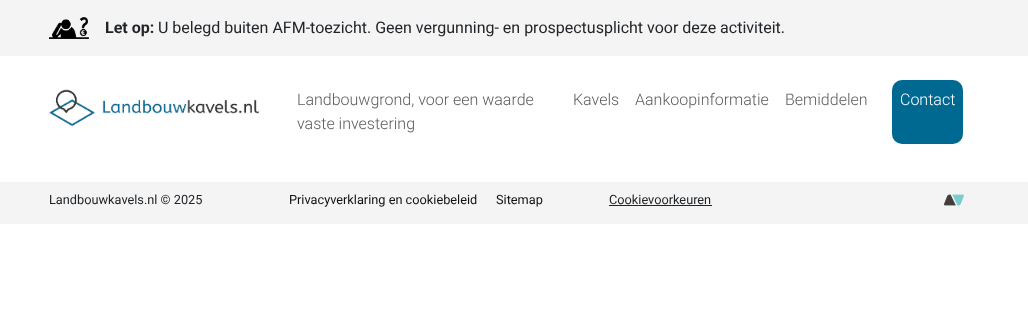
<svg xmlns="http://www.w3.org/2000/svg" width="1028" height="315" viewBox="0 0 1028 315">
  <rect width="100%" height="100%" fill="rgb(255,255,255)"/>
  <rect x="0" y="0" width="1028" height="56" fill="rgb(244,244,244)"/>
  <image x="49" y="17" width="40" height="22" href="pic1.png"/>
  <text x="105" y="33" font-family="Roboto" font-size="16" font-weight="bold" fill="rgb(33,37,41)">Let op:</text>
  <text x="158" y="33" font-family="Roboto" font-size="16" fill="rgb(33,37,41)">U belegd buiten AFM-toezicht. Geen vergunning- en prospectusplicht voor deze activiteit.</text>
  <image x="49" y="89" width="210" height="38" href="pic2.png"/>
  <g font-family="Roboto" font-size="16" font-weight="300" fill="rgb(92,92,92)">
    <text>
      <tspan x="297" y="105">Landbouwgrond, voor een waarde</tspan>
      <tspan x="297" y="129">vaste investering</tspan>
    </text>
    <text x="573" y="105">Kavels</text>
    <text x="635" y="105">Aankoopinformatie</text>
    <text x="785" y="105">Bemiddelen</text>
  </g>
  <rect x="892" y="80" width="71" height="64" rx="10" fill="rgb(0,105,145)"/>
  <text x="900" y="105" font-family="Roboto" font-size="16" font-weight="300" fill="rgb(255,255,255)">Contact</text>
  <rect x="0" y="182" width="1028" height="42" fill="rgb(244,244,244)"/>
  <text x="49" y="204" font-family="Roboto" font-size="12.75" fill="rgb(33,37,41)">Landbouwkavels.nl © 2025</text>
  <g font-family="Roboto" font-size="12.75" fill="rgb(17,17,17)">
    <text x="289" y="204">Privacyverklaring en cookiebeleid</text>
    <text x="496" y="204">Sitemap</text>
  </g>
  <text x="609" y="204" font-family="Roboto" font-size="12.75" fill="rgb(33,37,41)">Cookievoorkeuren</text>
  <rect x="609" y="205" width="103" height="1" fill="rgb(33,37,41)"/>
  <image x="944" y="194" width="20" height="12" href="pic3.png"/>
</svg>
